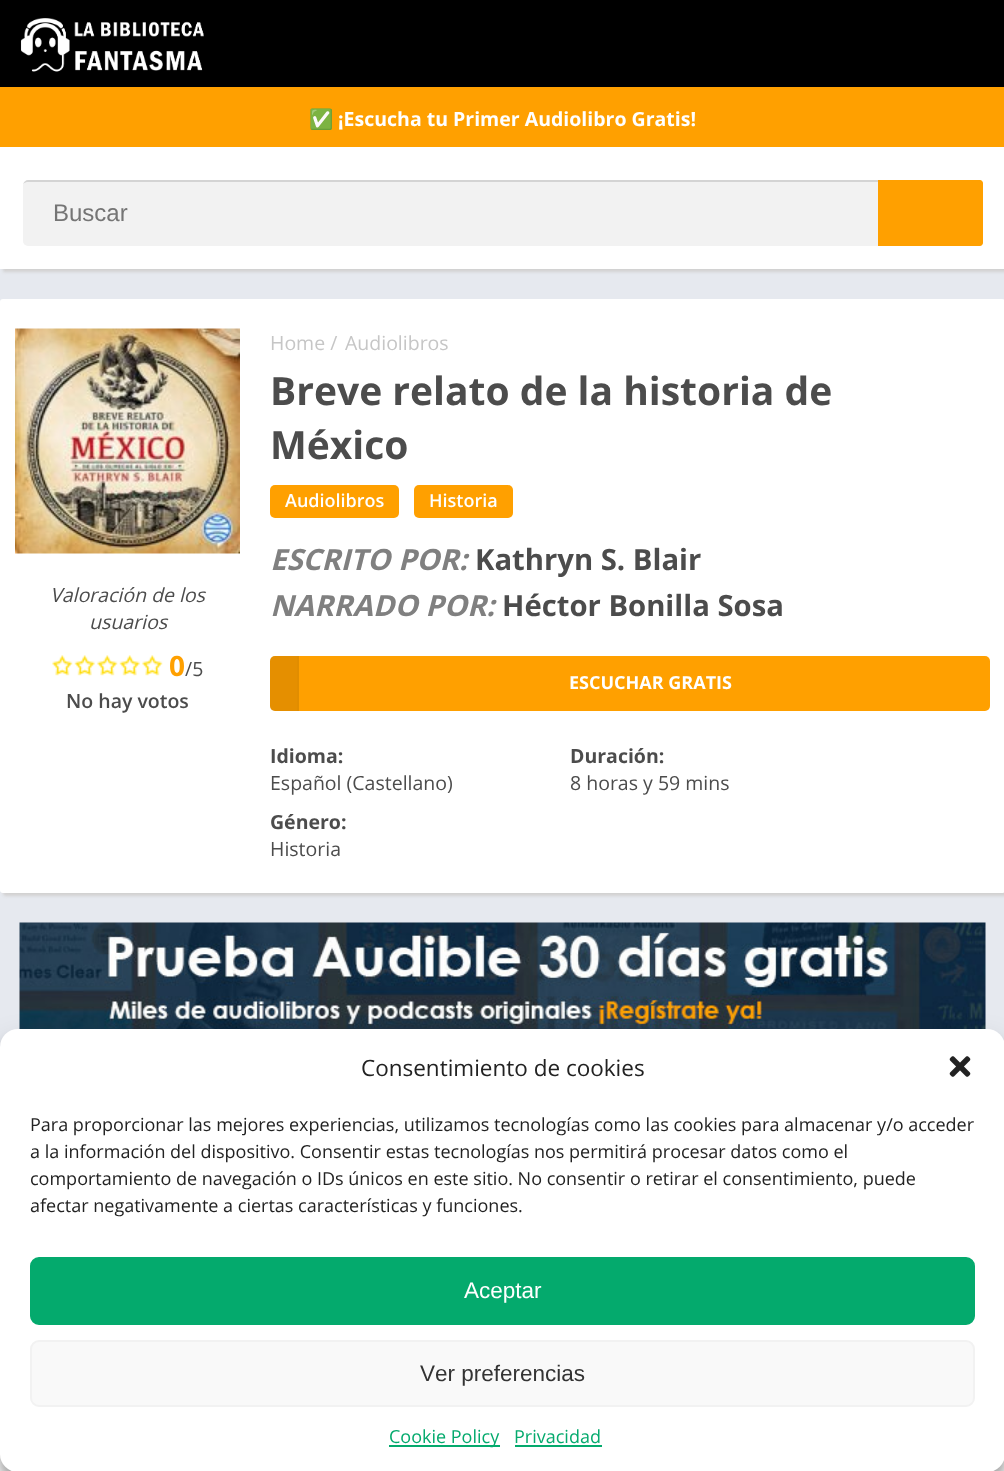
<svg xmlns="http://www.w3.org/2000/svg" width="1004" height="1471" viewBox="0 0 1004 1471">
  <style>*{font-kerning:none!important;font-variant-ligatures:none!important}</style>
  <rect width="100%" height="100%" fill="rgb(230,233,239)"/>
  <rect x="3" y="3" width="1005" height="269" fill="rgb(210,209,209)" filter="blur(1.5px)"/>
  <rect x="0" y="0" width="1004" height="87" fill="rgb(0,0,0)"/>
  <rect x="0" y="87" width="1004" height="60" fill="rgb(255,160,0)"/>
  <image x="20" y="18" width="184" height="54" href="pic1.png"/>
  <text x="309" y="126" font-family="Noto Color Emoji" font-size="19.5" font-weight="bold" fill="rgb(255,255,255)">✅</text>
  <text x="338" y="126" font-family="Open Sans" font-size="19.5" font-weight="bold" fill="rgb(255,255,255)">¡Escucha tu Primer Audiolibro Gratis!</text>
  <rect x="0" y="147" width="1004" height="122" fill="rgb(255,255,255)"/>
  <rect x="23" y="180" width="960" height="66" rx="5" fill="rgb(242,242,242)"/>
  <path d="M27 182H978C980 182 982 184 982 186V244C983 243 983 242 983 241V185C983 182 981 180 978 180H28C26 180 24 182 23 184C24 183 26 182 27 182Z" fill="rgba(0,0,0,0.12)"/>
  <text x="53" y="221" font-family="Liberation Sans" font-size="24" fill="rgb(117,117,117)">Buscar</text>
  <path d="M878 180H980C981.5 180 983 181.5 983 183V243C983 244.5 981.5 246 980 246H878Z" fill="rgb(255,160,0)"/>
  <rect x="3" y="302" width="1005" height="594" rx="3" fill="rgb(210,209,209)" filter="blur(1.5px)"/>
  <rect x="0" y="299" width="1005" height="594" rx="3" fill="rgb(255,255,255)"/>
  <image x="15" y="328" width="225" height="226" href="pic2.png"/>
  <g font-family="Open Sans" font-size="19.5" font-style="italic" fill="rgb(76,76,76)">
    <text x="50" y="602">Valoración de los</text>
    <text x="89" y="629">usuarios</text>
  </g>
  <image x="52" y="655" width="111" height="21" href="pic3.png"/>
  <text x="169" y="676" font-family="Open Sans" font-size="28" font-weight="bold" fill="rgb(255,160,0)">0</text>
  <text x="185" y="676" font-family="Open Sans" font-size="19.5" fill="rgb(76,76,76)">/5</text>
  <text x="66" y="708" font-family="Open Sans" font-size="19.5" font-weight="600" fill="rgb(76,76,76)">No hay votos</text>
  <g font-family="Open Sans" font-size="19.5" fill="rgb(198,198,198)">
    <text x="270" y="350">Home /</text>
    <text x="345" y="350">Audiolibros</text>
  </g>
  <g font-family="Open Sans" font-size="39" font-weight="bold" fill="rgb(76,76,76)">
    <text>
      <tspan x="270" y="405">Breve relato de la historia de</tspan>
      <tspan x="270" y="459">México</tspan>
    </text>
  </g>
  <rect x="270" y="485" width="129" height="33" rx="5" fill="rgb(255,160,0)"/>
  <text x="285" y="507" font-family="Open Sans" font-size="18" font-weight="600" fill="rgb(255,255,255)">Audiolibros</text>
  <rect x="414" y="485" width="99" height="33" rx="5" fill="rgb(255,160,0)"/>
  <text x="429" y="507" font-family="Open Sans" font-size="18" font-weight="600" fill="rgb(255,255,255)">Historia</text>
  <text x="270" y="570" font-family="Open Sans" font-size="29.25" font-weight="bold" font-style="italic" fill="rgb(128,128,128)">ESCRITO POR:</text>
  <text x="475" y="570" font-family="Open Sans" font-size="29.25" font-weight="bold" fill="rgb(76,76,76)">Kathryn S. Blair</text>
  <text x="270" y="616" font-family="Open Sans" font-size="29.25" font-weight="bold" font-style="italic" fill="rgb(128,128,128)">NARRADO POR:</text>
  <text x="502" y="616" font-family="Open Sans" font-size="29.25" font-weight="bold" fill="rgb(76,76,76)">Héctor Bonilla Sosa</text>
  <rect x="270" y="656" width="720" height="55" rx="5" fill="rgb(255,160,0)"/>
  <path d="M275 656H299V711H275C272 711 270 709 270 706V661C270 658 272 656 275 656Z" fill="rgba(0,0,0,0.1)"/>
  <rect x="297" y="656" width="2" height="55" fill="rgb(225,141,0)"/>
  <text x="569" y="689" font-family="Open Sans" font-size="18" font-weight="bold" fill="rgb(255,255,255)">ESCUCHAR GRATIS</text>
  <text x="270" y="763" font-family="Open Sans" font-size="19.5" font-weight="bold" fill="rgb(76,76,76)">Idioma:</text>
  <text x="270" y="790" font-family="Open Sans" font-size="19.5" fill="rgb(76,76,76)">Español (Castellano)</text>
  <text x="570" y="763" font-family="Open Sans" font-size="19.5" font-weight="bold" fill="rgb(76,76,76)">Duración:</text>
  <text x="570" y="790" font-family="Open Sans" font-size="19.5" fill="rgb(76,76,76)">8 horas y 59 mins</text>
  <text x="270" y="829" font-family="Open Sans" font-size="19.5" font-weight="bold" fill="rgb(76,76,76)">Género:</text>
  <text x="270" y="856" font-family="Open Sans" font-size="19.5" fill="rgb(76,76,76)">Historia</text>
  <image x="19" y="922" width="967" height="107" href="pic4.png"/>
  <rect x="0" y="1454" width="1004" height="17" fill="rgb(255,255,255)"/>
  <rect x="0" y="1038" width="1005" height="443" rx="18" fill="rgba(0,0,0,0.23)" filter="blur(4.5px)"/>
  <rect x="0" y="1044" width="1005" height="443" rx="18" fill="rgba(0,0,0,0.19)" filter="blur(15px)"/>
  <rect x="0" y="1029" width="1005" height="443" rx="18" fill="rgb(255,255,255)"/>
  <text x="361" y="1076" font-family="Open Sans" font-size="22.5" fill="rgb(34,34,34)">Consentimiento de cookies</text>
  <image x="949" y="1056" width="22" height="21" href="pic5.png"/>
  <g font-family="Open Sans" font-size="18" fill="rgb(34,34,34)">
    <text>
      <tspan x="30" y="1131">Para proporcionar las mejores experiencias, utilizamos tecnologías como las cookies para almacenar y/o acceder</tspan>
      <tspan x="30" y="1158">a la información del dispositivo. Consentir estas tecnologías nos permitirá procesar datos como el</tspan>
      <tspan x="30" y="1185">comportamiento de navegación o IDs únicos en este sitio. No consentir o retirar el consentimiento, puede</tspan>
      <tspan x="30" y="1212">afectar negativamente a ciertas características y funciones.</tspan>
    </text>
  </g>
  <rect x="31" y="1258" width="943" height="66" rx="8" fill="rgb(4,170,109)" stroke="rgb(4,170,109)" stroke-width="2"/>
  <text x="464" y="1298" font-family="Liberation Sans" font-size="22.5" fill="rgb(255,255,255)">Aceptar</text>
  <rect x="31" y="1341" width="943" height="65" rx="8" fill="rgb(249,249,249)" stroke="rgb(242,242,242)" stroke-width="2"/>
  <text x="420" y="1381" font-family="Liberation Sans" font-size="22.5" fill="rgb(51,51,51)">Ver preferencias</text>
  <rect x="389" y="1445" width="111" height="2" fill="rgb(4,170,109)"/>
  <g font-family="Open Sans" font-size="18" fill="rgb(4,170,109)">
    <text x="389" y="1443">Cookie Policy</text>
    <text x="514" y="1443">Privacidad</text>
  </g>
  <rect x="515" y="1445" width="87" height="2" fill="rgb(4,170,109)"/>
</svg>
